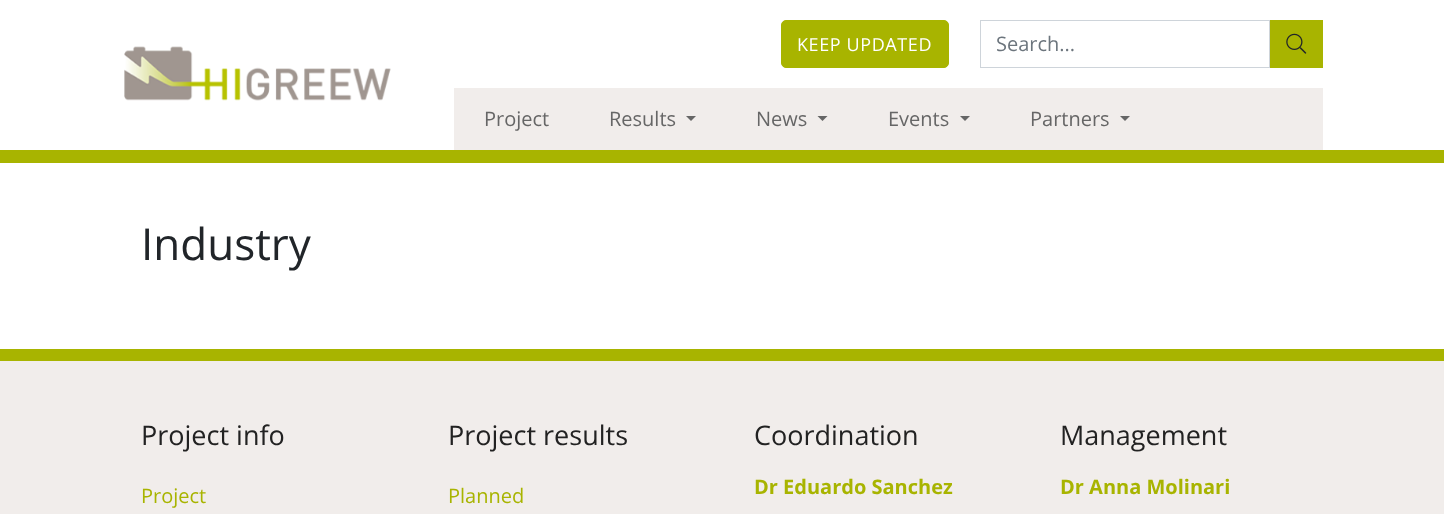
<svg xmlns="http://www.w3.org/2000/svg" width="1444" height="514" viewBox="0 0 1444 514">
  <rect width="100%" height="100%" fill="rgb(255,255,255)"/>
  <rect x="0" y="150" width="1444" height="13" fill="rgb(168,180,0)"/>
  <image x="124" y="46" width="267" height="55" href="pic1.png"/>
  <rect x="781.5" y="20.5" width="167" height="47" rx="4.5" fill="rgb(168,180,0)" stroke="rgb(168,180,0)"/>
  <text x="797" y="51" font-family="Open Sans" font-size="18" letter-spacing="0.6" fill="rgb(255,255,255)">KEEP UPDATED</text>
  <rect x="980.5" y="20.5" width="289" height="47" fill="none" stroke="rgb(206,212,218)"/>
  <text x="996" y="51" font-family="Open Sans" font-size="20" fill="rgb(108,117,125)">Search...</text>
  <rect x="1270" y="20" width="53" height="48" fill="rgb(168,180,0)"/>
  <image x="1286" y="33" width="21" height="21" href="pic2.png"/>
  <rect x="454" y="88" width="869" height="62" fill="rgb(241,237,235)"/>
  <g font-family="Open Sans" font-size="20" fill="rgb(102,102,102)">
    <text x="484" y="126">Project</text>
    <text x="609" y="126">Results</text>
  </g>
  <path d="M686 116H696L691 121Z" fill="rgb(102,102,102)"/>
  <text x="756" y="126" font-family="Open Sans" font-size="20" fill="rgb(102,102,102)">News</text>
  <path d="M817.5 116H827.5L822.5 121Z" fill="rgb(102,102,102)"/>
  <text x="888" y="126" font-family="Open Sans" font-size="20" fill="rgb(102,102,102)">Events</text>
  <path d="M960 116H970L965 121Z" fill="rgb(102,102,102)"/>
  <text x="1030" y="126" font-family="Open Sans" font-size="20" fill="rgb(102,102,102)">Partners</text>
  <path d="M1120 116H1130L1125 121Z" fill="rgb(102,102,102)"/>
  <text x="141" y="260" font-family="Open Sans" font-size="44" fill="rgb(33,37,41)">Industry</text>
  <rect x="0" y="361" width="1444" height="153" fill="rgb(241,237,235)"/>
  <rect x="0" y="349" width="1444" height="12" fill="rgb(168,180,0)"/>
  <text x="141" y="445" font-family="Open Sans" font-size="27" fill="rgb(34,34,34)">Project info</text>
  <text x="141" y="503" font-family="Open Sans" font-size="20" fill="rgb(168,180,0)">Project</text>
  <text x="448" y="445" font-family="Open Sans" font-size="27" fill="rgb(34,34,34)">Project results</text>
  <text x="448" y="503" font-family="Open Sans" font-size="20" fill="rgb(168,180,0)">Planned</text>
  <text x="754" y="445" font-family="Open Sans" font-size="27" fill="rgb(34,34,34)">Coordination</text>
  <text x="754" y="494" font-family="Open Sans" font-size="20" font-weight="bold" fill="rgb(168,180,0)">Dr Eduardo Sanchez</text>
  <text x="1060" y="445" font-family="Open Sans" font-size="27" fill="rgb(34,34,34)">Management</text>
  <text x="1060" y="494" font-family="Open Sans" font-size="20" font-weight="bold" fill="rgb(168,180,0)">Dr Anna Molinari</text>
</svg>
